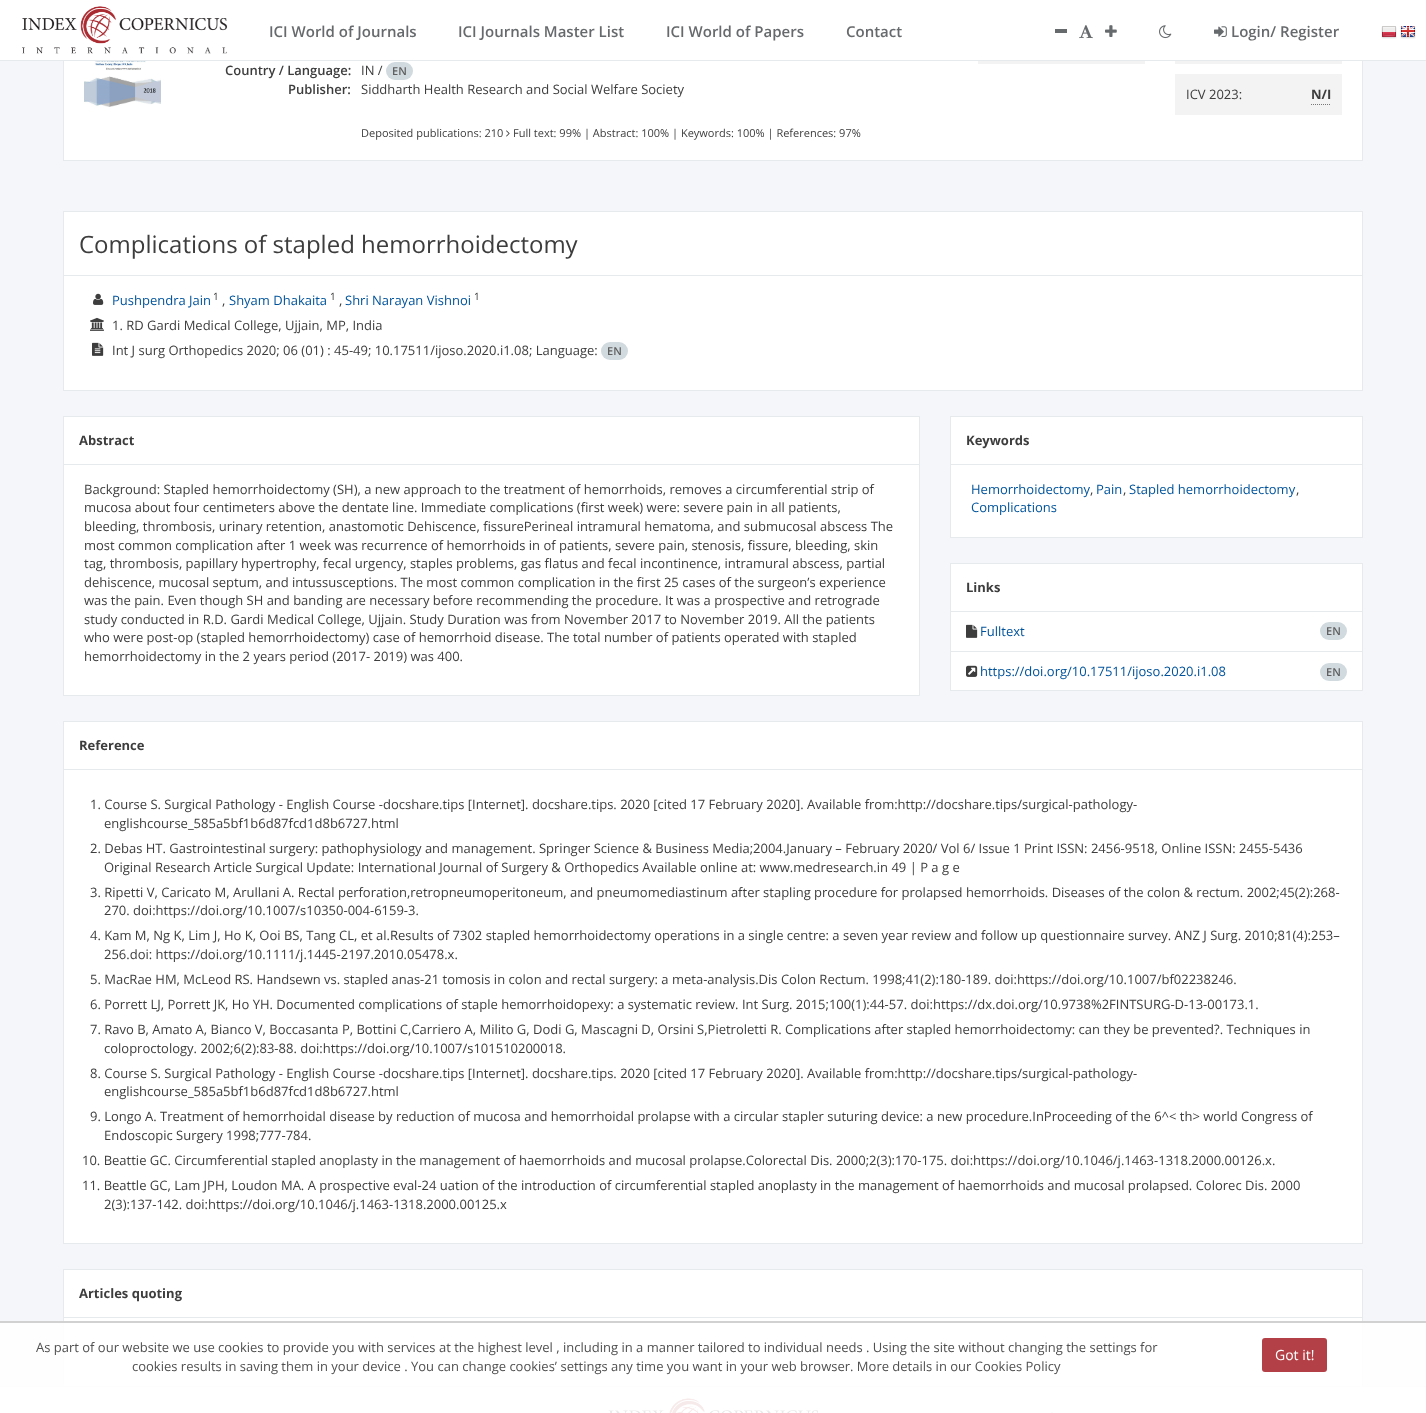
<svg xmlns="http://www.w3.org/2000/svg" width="1426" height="1413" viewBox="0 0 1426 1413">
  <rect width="100%" height="100%" fill="rgb(244,246,250)"/>
  <rect x="64" y="61" width="1298" height="99" fill="rgb(255,255,255)"/>
  <rect x="63.5" y="8.5" width="1299" height="152" fill="none" stroke="rgb(231,234,236)"/>
  <rect x="0" y="0" width="1426" height="60" fill="rgb(255,255,255)"/>
  <rect x="0" y="60" width="1426" height="1" fill="rgb(231,234,236)"/>
  <image x="22" y="6" width="206" height="48" href="pic1.png"/>
  <g font-family="Open Sans" font-size="15" font-weight="600" fill="rgb(103,106,108)">
    <text x="269" y="37">ICI World of Journals</text>
    <text x="458" y="37">ICI Journals Master List</text>
    <text x="666" y="37">ICI World of Papers</text>
    <text x="846" y="37">Contact</text>
  </g>
  <rect x="1055" y="29" width="12" height="4" fill="rgb(103,106,108)"/>
  <image x="1079" y="25" width="14" height="14" href="pic2.png"/>
  <image x="1105" y="25" width="12" height="12" href="pic3.png"/>
  <image x="1159" y="25" width="13" height="14" href="pic4.png"/>
  <image x="1214" y="26" width="13" height="11" href="pic5.png"/>
  <text x="1231" y="37" font-family="Open Sans" font-size="15" font-weight="600" fill="rgb(103,106,108)">Login/ Register</text>
  <image x="1381" y="26" width="16" height="13" href="pic6.png"/>
  <image x="1400" y="26" width="16" height="13" href="pic7.png"/>
  <image x="84" y="61" width="77" height="46" href="pic8.png"/>
  <rect x="978" y="61" width="167" height="3" fill="rgb(243,243,244)"/>
  <text x="225" y="75" font-family="Open Sans" font-size="13" font-weight="600" fill="rgb(61,61,61)">Country / Language:</text>
  <text x="361" y="75" font-family="Open Sans" font-size="13" fill="rgb(61,61,61)">IN /</text>
  <rect x="386" y="62" width="27" height="18" rx="9" fill="rgb(209,218,222)"/>
  <text x="392" y="75" font-family="Open Sans" font-size="11" font-weight="600" fill="rgb(94,94,94)">EN</text>
  <text x="288" y="94" font-family="Open Sans" font-size="13" font-weight="600" fill="rgb(61,61,61)">Publisher:</text>
  <text x="361" y="94" font-family="Open Sans" font-size="13" fill="rgb(61,61,61)">Siddharth Health Research and Social Welfare Society</text>
  <rect x="1175" y="61" width="167" height="3" fill="rgb(243,243,244)"/>
  <rect x="1175" y="74" width="167" height="41" fill="rgb(243,243,244)"/>
  <text x="1186" y="99" font-family="Open Sans" font-size="13" fill="rgb(61,61,61)">ICV 2023:</text>
  <path d="M1311 104.5H1331" fill="none" stroke="rgb(119,119,119)" stroke-dasharray="1 1"/>
  <text x="1311" y="99" font-family="Open Sans" font-size="13" font-weight="bold" fill="rgb(61,61,61)">N/I</text>
  <text x="361" y="137" font-family="Open Sans" font-size="11" fill="rgb(61,61,61)">Deposited publications: 210</text>
  <image x="506" y="130" width="4" height="7" href="pic9.png"/>
  <text x="513" y="137" font-family="Open Sans" font-size="11" fill="rgb(61,61,61)">Full text: 99% | Abstract: 100% | Keywords: 100% | References: 97%</text>
  <rect x="64" y="212" width="1298" height="63" fill="rgb(255,255,255)"/>
  <rect x="63" y="211" width="1300" height="1" fill="rgb(231,234,236)"/>
  <rect x="1362" y="211" width="1" height="64" fill="rgb(231,234,236)"/>
  <rect x="63" y="211" width="1" height="64" fill="rgb(231,234,236)"/>
  <text x="79" y="253" font-family="Open Sans" font-size="24" fill="rgb(61,61,61)">Complications of stapled hemorrhoidectomy</text>
  <rect x="63.5" y="275.5" width="1299" height="115" fill="rgb(255,255,255)" stroke="rgb(231,234,236)"/>
  <image x="93" y="293" width="11" height="12" href="pic10.png"/>
  <text x="112" y="305" font-family="Open Sans" font-size="13" fill="rgb(0,83,155)">Pushpendra Jain</text>
  <text x="213" y="300" font-family="Open Sans" font-size="10" fill="rgb(61,61,61)">1</text>
  <text x="222" y="305" font-family="Open Sans" font-size="13" fill="rgb(61,61,61)">,</text>
  <text x="229" y="305" font-family="Open Sans" font-size="13" fill="rgb(0,83,155)">Shyam Dhakaita</text>
  <text x="330" y="300" font-family="Open Sans" font-size="10" fill="rgb(61,61,61)">1</text>
  <text x="339" y="305" font-family="Open Sans" font-size="13" fill="rgb(61,61,61)">,</text>
  <text x="345" y="305" font-family="Open Sans" font-size="13" fill="rgb(0,83,155)">Shri Narayan Vishnoi</text>
  <text x="474" y="300" font-family="Open Sans" font-size="10" fill="rgb(61,61,61)">1</text>
  <image x="90" y="317" width="14" height="14" href="pic11.png"/>
  <text x="112" y="330" font-family="Open Sans" font-size="13" fill="rgb(61,61,61)">1. RD Gardi Medical College, Ujjain, MP, India</text>
  <image x="92" y="342" width="12" height="14" href="pic12.png"/>
  <text x="112" y="355" font-family="Open Sans" font-size="13" fill="rgb(61,61,61)">Int J surg Orthopedics 2020; 06 (01) : 45-49; 10.17511/ijoso.2020.i1.08; Language:</text>
  <rect x="601" y="342" width="27" height="18" rx="9" fill="rgb(209,218,222)"/>
  <text x="607" y="355" font-family="Open Sans" font-size="11" font-weight="600" fill="rgb(94,94,94)">EN</text>
  <rect x="64" y="417" width="855" height="47" fill="rgb(255,255,255)"/>
  <rect x="63" y="416" width="857" height="1" fill="rgb(231,234,236)"/>
  <rect x="919" y="416" width="1" height="48" fill="rgb(231,234,236)"/>
  <rect x="63" y="416" width="1" height="48" fill="rgb(231,234,236)"/>
  <text x="79" y="445" font-family="Open Sans" font-size="13" font-weight="bold" fill="rgb(61,61,61)">Abstract</text>
  <rect x="63.5" y="464.5" width="856" height="231" fill="rgb(255,255,255)" stroke="rgb(231,234,236)"/>
  <g font-family="Open Sans" font-size="13" fill="rgb(61,61,61)">
    <text>
      <tspan x="84" y="494">Background: Stapled hemorrhoidectomy (SH), a new approach to the treatment of hemorrhoids, removes a circumferential strip of</tspan>
      <tspan x="84" y="512">mucosa about four centimeters above the dentate line. Immediate complications (first week) were: severe pain in all patients,</tspan>
      <tspan x="84" y="531">bleeding, thrombosis, urinary retention, anastomotic Dehiscence, fissurePerineal intramural hematoma, and submucosal abscess The</tspan>
      <tspan x="84" y="550">most common complication after 1 week was recurrence of hemorrhoids in of patients, severe pain, stenosis, fissure, bleeding, skin</tspan>
      <tspan x="84" y="568">tag, thrombosis, papillary hypertrophy, fecal urgency, staples problems, gas flatus and fecal incontinence, intramural abscess, partial</tspan>
      <tspan x="84" y="587">dehiscence, mucosal septum, and intussusceptions. The most common complication in the first 25 cases of the surgeon’s experience</tspan>
      <tspan x="84" y="605">was the pain. Even though SH and banding are necessary before recommending the procedure. It was a prospective and retrograde</tspan>
      <tspan x="84" y="624">study conducted in R.D. Gardi Medical College, Ujjain. Study Duration was from November 2017 to November 2019. All the patients</tspan>
      <tspan x="84" y="642">who were post-op (stapled hemorrhoidectomy) case of hemorrhoid disease. The total number of patients operated with stapled</tspan>
      <tspan x="84" y="661">hemorrhoidectomy in the 2 years period (2017- 2019) was 400.</tspan>
    </text>
  </g>
  <rect x="951" y="417" width="411" height="47" fill="rgb(255,255,255)"/>
  <rect x="950" y="416" width="413" height="1" fill="rgb(231,234,236)"/>
  <rect x="1362" y="416" width="1" height="48" fill="rgb(231,234,236)"/>
  <rect x="950" y="416" width="1" height="48" fill="rgb(231,234,236)"/>
  <text x="966" y="445" font-family="Open Sans" font-size="13" font-weight="bold" fill="rgb(61,61,61)">Keywords</text>
  <rect x="950.5" y="464.5" width="412" height="73" fill="rgb(255,255,255)" stroke="rgb(231,234,236)"/>
  <text x="971" y="494" font-family="Open Sans" font-size="13" fill="rgb(0,83,155)">Hemorrhoidectomy</text>
  <text x="1090" y="494" font-family="Open Sans" font-size="13" fill="rgb(61,61,61)">,</text>
  <text x="1096" y="494" font-family="Open Sans" font-size="13" fill="rgb(0,83,155)">Pain</text>
  <text x="1123" y="494" font-family="Open Sans" font-size="13" fill="rgb(61,61,61)">,</text>
  <text x="1129" y="494" font-family="Open Sans" font-size="13" fill="rgb(0,83,155)">Stapled hemorrhoidectomy</text>
  <text x="1296" y="494" font-family="Open Sans" font-size="13" fill="rgb(61,61,61)">,</text>
  <text x="971" y="512" font-family="Open Sans" font-size="13" fill="rgb(0,83,155)">Complications</text>
  <rect x="951" y="564" width="411" height="47" fill="rgb(255,255,255)"/>
  <rect x="950" y="563" width="413" height="1" fill="rgb(231,234,236)"/>
  <rect x="1362" y="563" width="1" height="48" fill="rgb(231,234,236)"/>
  <rect x="950" y="563" width="1" height="48" fill="rgb(231,234,236)"/>
  <text x="966" y="592" font-family="Open Sans" font-size="13" font-weight="bold" fill="rgb(61,61,61)">Links</text>
  <rect x="950.5" y="611.5" width="412" height="79" fill="rgb(255,255,255)" stroke="rgb(231,234,236)"/>
  <image x="966" y="624" width="12" height="14" href="pic13.png"/>
  <text x="980" y="636" font-family="Open Sans" font-size="13" fill="rgb(0,83,155)">Fulltext</text>
  <rect x="1320" y="622" width="27" height="18" rx="9" fill="rgb(209,218,222)"/>
  <text x="1326" y="635" font-family="Open Sans" font-size="11" font-weight="600" fill="rgb(94,94,94)">EN</text>
  <rect x="951" y="651" width="411" height="1" fill="rgb(231,234,236)"/>
  <image x="966" y="665" width="12" height="12" href="pic14.png"/>
  <text x="980" y="676" font-family="Open Sans" font-size="13" fill="rgb(0,83,155)">https://doi.org/10.17511/ijoso.2020.i1.08</text>
  <rect x="1320" y="663" width="27" height="18" rx="9" fill="rgb(209,218,222)"/>
  <text x="1326" y="676" font-family="Open Sans" font-size="11" font-weight="600" fill="rgb(94,94,94)">EN</text>
  <rect x="64" y="722" width="1298" height="47" fill="rgb(255,255,255)"/>
  <rect x="63" y="721" width="1300" height="1" fill="rgb(231,234,236)"/>
  <rect x="1362" y="721" width="1" height="48" fill="rgb(231,234,236)"/>
  <rect x="63" y="721" width="1" height="48" fill="rgb(231,234,236)"/>
  <text x="79" y="750" font-family="Open Sans" font-size="13" font-weight="bold" fill="rgb(61,61,61)">Reference</text>
  <rect x="63.5" y="769.5" width="1299" height="474" fill="rgb(255,255,255)" stroke="rgb(231,234,236)"/>
  <g font-family="Open Sans" font-size="13" fill="rgb(61,61,61)">
    <text x="90" y="809">1. Course S. Surgical Pathology - English Course -docshare.tips [Internet]. docshare.tips. 2020 [cited 17 February 2020]. Available from:http://docshare.tips/surgical-pathology-</text>
    <text x="104" y="828">englishcourse_585a5bf1b6d87fcd1d8b6727.html</text>
    <text x="90" y="853">2. Debas HT. Gastrointestinal surgery: pathophysiology and management. Springer Science &amp; Business Media;2004.January – February 2020/ Vol 6/ Issue 1 Print ISSN: 2456-9518, Online ISSN: 2455-5436</text>
    <text x="104" y="872">Original Research Article Surgical Update: International Journal of Surgery &amp; Orthopedics Available online at: www.medresearch.in 49 | P a g e</text>
    <text x="90" y="897">3. Ripetti V, Caricato M, Arullani A. Rectal perforation,retropneumoperitoneum, and pneumomediastinum after stapling procedure for prolapsed hemorrhoids. Diseases of the colon &amp; rectum. 2002;45(2):268-</text>
    <text x="104" y="915">270. doi:https://doi.org/10.1007/s10350-004-6159-3.</text>
    <text x="90" y="940">4. Kam M, Ng K, Lim J, Ho K, Ooi BS, Tang CL, et al.Results of 7302 stapled hemorrhoidectomy operations in a single centre: a seven year review and follow up questionnaire survey. ANZ J Surg. 2010;81(4):253–</text>
    <text x="104" y="959">256.doi: https://doi.org/10.1111/j.1445-2197.2010.05478.x.</text>
    <text>
      <tspan x="90" y="984">5. MacRae HM, McLeod RS. Handsewn vs. stapled anas-21 tomosis in colon and rectal surgery: a meta-analysis.Dis Colon Rectum. 1998;41(2):180-189. doi:https://doi.org/10.1007/bf02238246.</tspan>
      <tspan x="90" y="1009">6. Porrett LJ, Porrett JK, Ho YH. Documented complications of staple hemorrhoidopexy: a systematic review. Int Surg. 2015;100(1):44-57. doi:https://dx.doi.org/10.9738%2FINTSURG-D-13-00173.1.</tspan>
      <tspan x="90" y="1034">7. Ravo B, Amato A, Bianco V, Boccasanta P, Bottini C,Carriero A, Milito G, Dodi G, Mascagni D, Orsini S,Pietroletti R. Complications after stapled hemorrhoidectomy: can they be prevented?. Techniques in</tspan>
    </text>
    <text x="104" y="1053">coloproctology. 2002;6(2):83-88. doi:https://doi.org/10.1007/s101510200018.</text>
    <text x="90" y="1078">8. Course S. Surgical Pathology - English Course -docshare.tips [Internet]. docshare.tips. 2020 [cited 17 February 2020]. Available from:http://docshare.tips/surgical-pathology-</text>
    <text x="104" y="1096">englishcourse_585a5bf1b6d87fcd1d8b6727.html</text>
    <text x="90" y="1121">9. Longo A. Treatment of hemorrhoidal disease by reduction of mucosa and hemorrhoidal prolapse with a circular stapler suturing device: a new procedure.InProceeding of the 6^&lt; th&gt; world Congress of</text>
    <text x="104" y="1140">Endoscopic Surgery 1998;777-784.</text>
    <text>
      <tspan x="82" y="1165">10. Beattie GC. Circumferential stapled anoplasty in the management of haemorrhoids and mucosal prolapse.Colorectal Dis. 2000;2(3):170-175. doi:https://doi.org/10.1046/j.1463-1318.2000.00126.x.</tspan>
      <tspan x="82" y="1190">11. Beattle GC, Lam JPH, Loudon MA. A prospective eval-24 uation of the introduction of circumferential stapled anoplasty in the management of haemorrhoids and mucosal prolapsed. Colorec Dis. 2000</tspan>
    </text>
    <text x="104" y="1209">2(3):137-142. doi:https://doi.org/10.1046/j.1463-1318.2000.00125.x</text>
  </g>
  <rect x="64" y="1270" width="1298" height="47" fill="rgb(255,255,255)"/>
  <rect x="63" y="1269" width="1300" height="1" fill="rgb(231,234,236)"/>
  <rect x="1362" y="1269" width="1" height="48" fill="rgb(231,234,236)"/>
  <rect x="63" y="1269" width="1" height="48" fill="rgb(231,234,236)"/>
  <text x="79" y="1298" font-family="Open Sans" font-size="13" font-weight="bold" fill="rgb(61,61,61)">Articles quoting</text>
  <rect x="64" y="1318" width="1298" height="68" fill="rgb(255,255,255)"/>
  <rect x="63.5" y="1317.5" width="1299" height="81" fill="none" stroke="rgb(231,234,236)"/>
  <rect x="0" y="1387" width="1426" height="26" fill="rgb(255,255,255)"/>
  <rect x="0" y="1386" width="1426" height="1" fill="rgb(231,234,236)"/>
  <image x="608" y="1398" width="210" height="15" href="pic15.png"/>
  <image x="1051" y="1412" width="2" height="1" href="pic16.png"/>
  <rect x="0" y="1323" width="1426" height="90" fill="rgba(255,255,255,0.9)"/>
  <rect x="0" y="1321" width="1426" height="2" fill="rgb(209,209,209)"/>
  <g font-family="Open Sans" font-size="13" fill="rgb(80,80,80)">
    <text x="36" y="1352">As part of our website we use cookies to provide you with services at the highest level , including in a manner tailored to individual needs . Using the site without changing the settings for</text>
    <text x="132" y="1371">cookies results in saving them in your device . You can change cookies’ settings any time you want in your web browser. More details in our Cookies Policy</text>
  </g>
  <rect x="1262" y="1338" width="65" height="34" rx="3" fill="rgb(179,64,70)"/>
  <text x="1275" y="1360" font-family="Open Sans" font-size="14" fill="rgb(255,255,255)">Got it!</text>
</svg>
